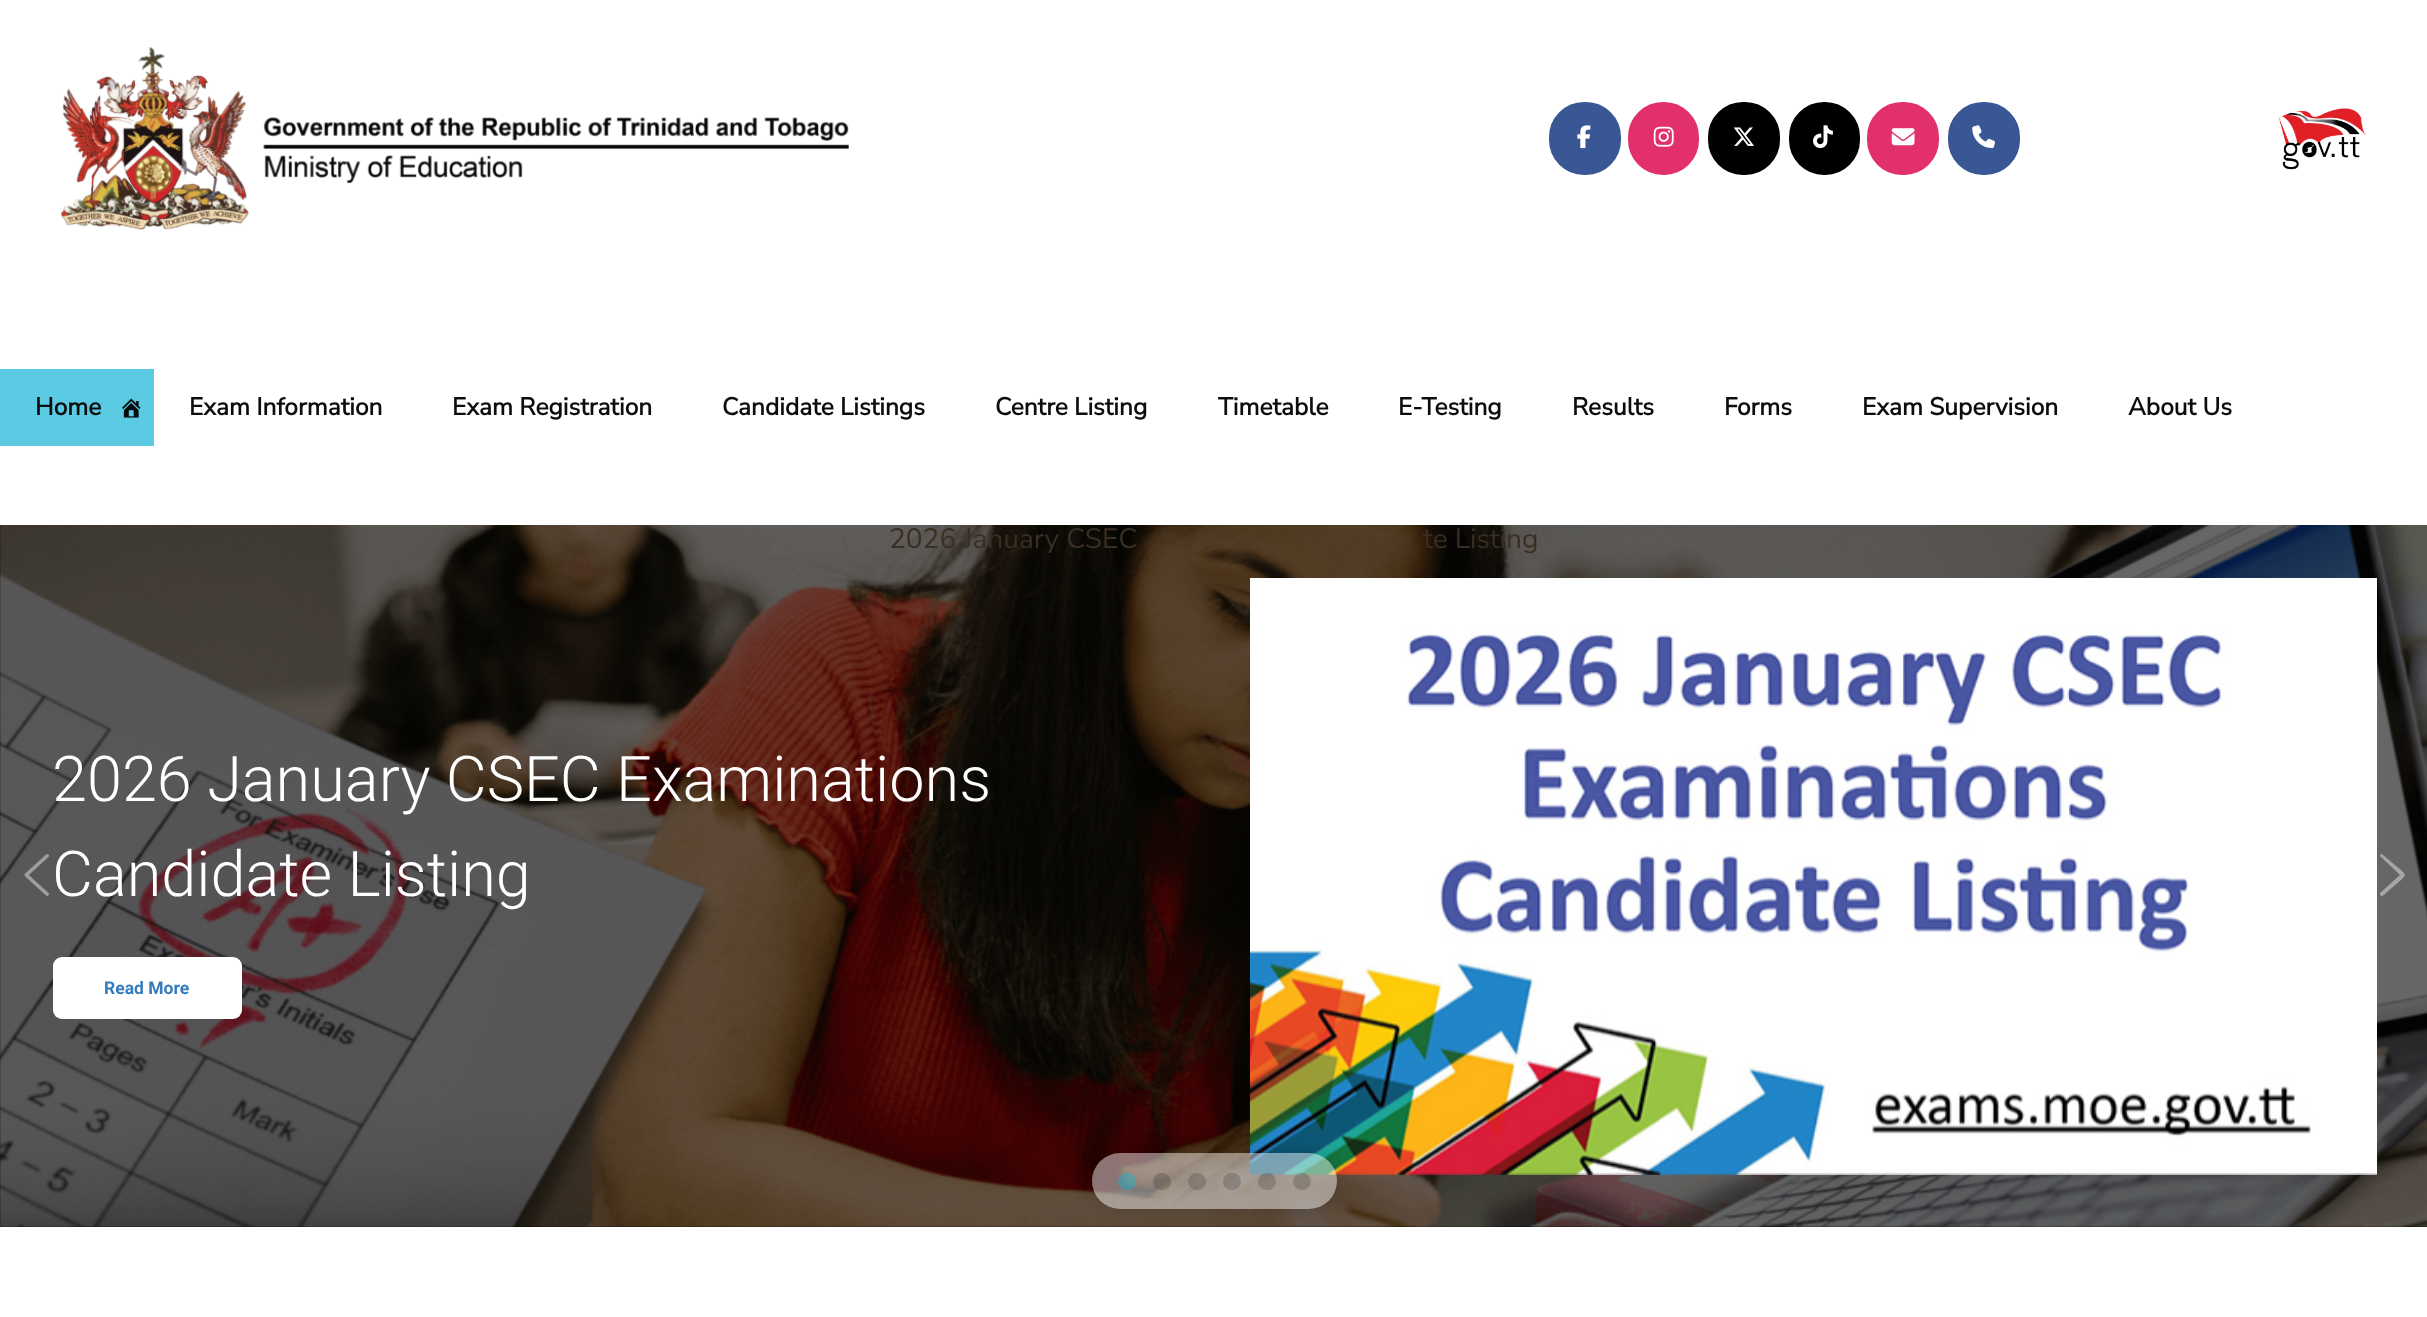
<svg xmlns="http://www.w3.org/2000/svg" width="2427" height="1317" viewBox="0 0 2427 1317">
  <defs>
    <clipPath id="clip1"><path d="M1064 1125H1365V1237H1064ZM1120 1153H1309C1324.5 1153 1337 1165.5 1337 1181C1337 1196.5 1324.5 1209 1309 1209H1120C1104.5 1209 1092 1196.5 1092 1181C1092 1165.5 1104.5 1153 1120 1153Z" clip-rule="evenodd"/></clipPath>
  </defs>
  <rect width="100%" height="100%" fill="rgb(255,255,255)"/>
  <image x="61" y="47" width="788" height="183" href="pic1.png"/>
  <rect x="1550" y="103" width="70" height="71" rx="34" fill="rgb(58,87,149)" stroke="rgb(58,87,149)" stroke-width="2"/>
  <image x="1577" y="125" width="14" height="24" href="pic2.png"/>
  <rect x="1629" y="103" width="69" height="71" rx="34" fill="rgb(225,48,108)" stroke="rgb(225,48,108)" stroke-width="2"/>
  <image x="1653" y="126" width="21" height="21" href="pic3.png"/>
  <rect x="1709" y="103" width="70" height="71" rx="34" fill="rgb(0,0,0)" stroke="rgb(0,0,0)" stroke-width="2"/>
  <image x="1733" y="127" width="21" height="19" href="pic4.png"/>
  <rect x="1790" y="103" width="69" height="71" rx="34" fill="rgb(0,0,0)" stroke="rgb(0,0,0)" stroke-width="2"/>
  <image x="1813" y="125" width="20" height="24" href="pic5.png"/>
  <rect x="1868" y="103" width="70" height="71" rx="34" fill="rgb(225,48,108)" stroke="rgb(225,48,108)" stroke-width="2"/>
  <image x="1891" y="128" width="24" height="18" href="pic6.png"/>
  <rect x="1949" y="103" width="70" height="71" rx="34" fill="rgb(58,87,149)" stroke="rgb(58,87,149)" stroke-width="2"/>
  <image x="1972" y="125" width="23" height="24" href="pic7.png"/>
  <image x="2278" y="108" width="88" height="62" href="pic8.png"/>
  <rect x="0" y="369" width="154" height="77" fill="rgb(91,202,227)"/>
  <text x="35" y="415" font-family="Nunito Sans" font-size="24.5" font-weight="bold" fill="rgb(13,13,13)">Home</text>
  <image x="122" y="398" width="19" height="20" href="pic9.png"/>
  <g font-family="Nunito Sans" font-size="24.5" font-weight="bold" fill="rgb(13,13,13)">
    <text x="189" y="415">Exam Information</text>
    <text x="452" y="415">Exam Registration</text>
    <text x="722" y="415">Candidate Listings</text>
    <text x="995" y="415">Centre Listing</text>
    <text x="1218" y="415">Timetable</text>
    <text x="1398" y="415">E-Testing</text>
    <text x="1572" y="415">Results</text>
    <text x="1724" y="415">Forms</text>
    <text x="1862" y="415">Exam Supervision</text>
    <text x="2128" y="415">About Us</text>
  </g>
  <rect x="0" y="525" width="2427" height="702" fill="rgb(0,0,0)"/>
  <image x="0" y="525" width="2427" height="702" href="pic11.png"/>
  <image x="24" y="854" width="25" height="42" href="pic10.png"/>
  <g font-family="Nunito Sans" font-size="28" font-weight="200" fill="rgb(58,46,34)">
    <text x="889" y="548">2026 January CSEC</text>
    <text x="1423" y="548">te Listing</text>
  </g>
  <g font-family="Roboto" font-size="63" font-weight="300" fill="rgb(255,255,255)">
    <text>
      <tspan x="52" y="801">2026 January CSEC Examinations</tspan>
      <tspan x="52" y="896">Candidate Listing</tspan>
    </text>
  </g>
  <rect x="53" y="957" width="189" height="62" rx="9" fill="rgb(255,255,255)"/>
  <text x="104" y="994" font-family="Roboto" font-size="17.5" font-weight="bold" fill="rgb(53,124,189)">Read More</text>
  <image x="1250" y="578" width="1127" height="597" href="pic12.png"/>
  <path d="M2383 855C2382 853 2380 854 2380 856L2400 875L2380 893V895C2382 898 2386 893 2387 892L2401 880C2406 875 2406 875 2401 870Z" fill="rgb(166,166,166)" fill-rule="evenodd"/>
  <g clip-path="url(#clip1)">
    <rect x="1092" y="1153" width="245" height="56" rx="28" fill="rgba(0,0,0,0.16)" filter="blur(9px)"/>
  </g>
  <rect x="1092" y="1153" width="245" height="56" rx="28" fill="rgba(255,255,255,0.45)"/>
  <rect x="1118" y="1173" width="18" height="17" rx="8.5" fill="rgba(22,183,204,0.44)"/>
  <rect x="1153" y="1173" width="18" height="17" rx="8.5" fill="rgba(0,0,0,0.17)"/>
  <rect x="1188" y="1173" width="18" height="17" rx="8.5" fill="rgba(0,0,0,0.17)"/>
  <rect x="1223" y="1173" width="18" height="17" rx="8.5" fill="rgba(0,0,0,0.17)"/>
  <rect x="1258" y="1173" width="18" height="17" rx="8.5" fill="rgba(0,0,0,0.17)"/>
  <rect x="1293" y="1173" width="18" height="17" rx="8.5" fill="rgba(0,0,0,0.17)"/>
</svg>
